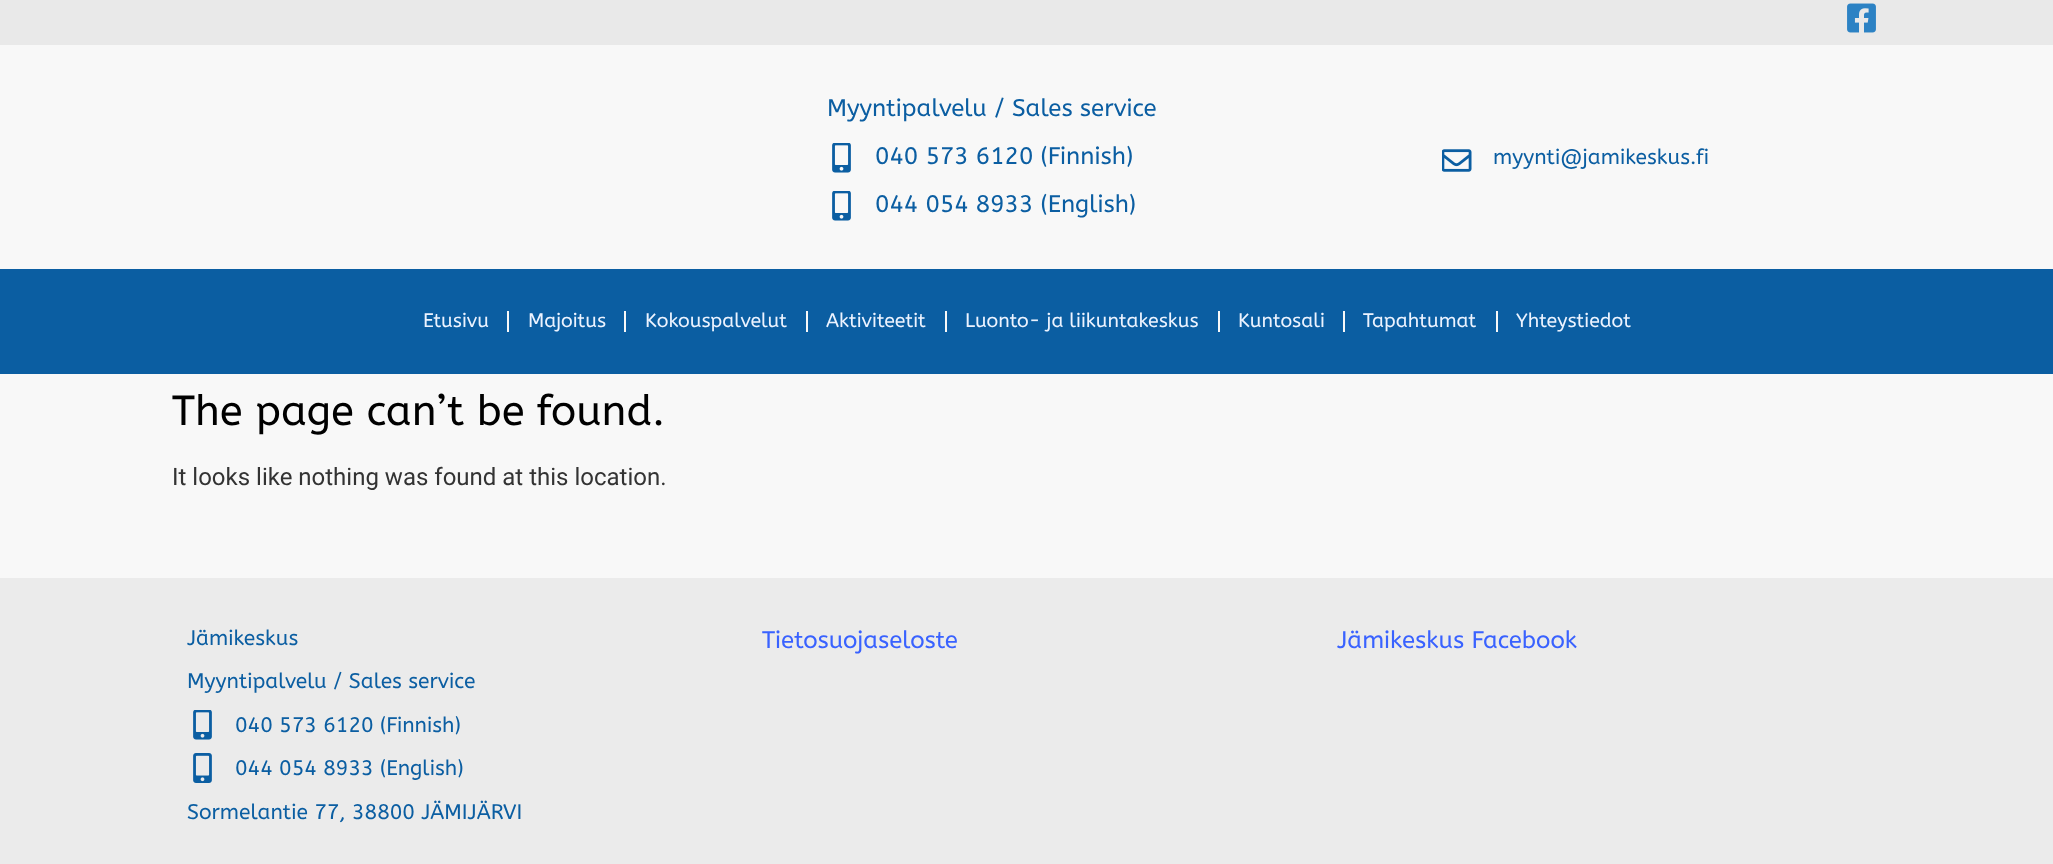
<svg xmlns="http://www.w3.org/2000/svg" width="2053" height="864" viewBox="0 0 2053 864">
  <rect width="100%" height="100%" fill="rgb(248,248,248)"/>
  <rect x="0" y="0" width="2053" height="45" fill="rgb(233,233,233)"/>
  <image x="1847" y="3" width="29" height="30" href="pic1.png"/>
  <text x="827" y="116" font-family="ABeeZee" font-size="24" fill="rgb(11,94,162)">Myyntipalvelu / Sales service</text>
  <image x="832" y="143" width="19" height="30" href="pic2.png"/>
  <text x="875" y="164" font-family="ABeeZee" font-size="24" fill="rgb(11,94,162)">040 573 6120 (Finnish)</text>
  <image x="832" y="191" width="19" height="30" href="pic2.png"/>
  <text x="875" y="212" font-family="ABeeZee" font-size="24" fill="rgb(11,94,162)">044 054 8933 (English)</text>
  <image x="1442" y="149" width="30" height="23" href="pic3.png"/>
  <text x="1493" y="164" font-family="ABeeZee" font-size="21" fill="rgb(11,94,162)">myynti@jamikeskus.fi</text>
  <rect x="0" y="269" width="2053" height="105" fill="rgb(11,94,162)"/>
  <text x="423" y="327" font-family="ABeeZee" font-size="19.5" fill="rgb(236,243,255)">Etusivu</text>
  <rect x="507" y="311" width="2" height="21" fill="rgb(248,248,248)"/>
  <text x="528" y="327" font-family="ABeeZee" font-size="19.5" fill="rgb(236,243,255)">Majoitus</text>
  <rect x="624" y="311" width="2" height="21" fill="rgb(248,248,248)"/>
  <text x="645" y="327" font-family="ABeeZee" font-size="19.5" fill="rgb(236,243,255)">Kokouspalvelut</text>
  <rect x="806" y="311" width="2" height="21" fill="rgb(248,248,248)"/>
  <text x="826" y="327" font-family="ABeeZee" font-size="19.5" fill="rgb(236,243,255)">Aktiviteetit</text>
  <rect x="945" y="311" width="2" height="21" fill="rgb(248,248,248)"/>
  <text x="965" y="327" font-family="ABeeZee" font-size="19.5" fill="rgb(236,243,255)">Luonto- ja liikuntakeskus</text>
  <rect x="1218" y="311" width="2" height="21" fill="rgb(248,248,248)"/>
  <text x="1238" y="327" font-family="ABeeZee" font-size="19.5" fill="rgb(236,243,255)">Kuntosali</text>
  <rect x="1343" y="311" width="2" height="21" fill="rgb(248,248,248)"/>
  <text x="1363" y="327" font-family="ABeeZee" font-size="19.5" fill="rgb(236,243,255)">Tapahtumat</text>
  <rect x="1496" y="311" width="2" height="21" fill="rgb(248,248,248)"/>
  <text x="1516" y="327" font-family="ABeeZee" font-size="19.5" fill="rgb(236,243,255)">Yhteystiedot</text>
  <text x="172" y="425" font-family="ABeeZee" font-size="42" fill="rgb(0,0,0)">The page can’t be found.</text>
  <text x="172" y="485" font-family="Roboto" font-size="24" fill="rgb(51,51,51)">It looks like nothing was found at this location.</text>
  <rect x="0" y="578" width="2053" height="286" fill="rgb(235,235,235)"/>
  <g font-family="ABeeZee" font-size="21" fill="rgb(11,94,162)">
    <text x="187" y="645">Jämikeskus</text>
    <text x="187" y="688">Myyntipalvelu / Sales service</text>
  </g>
  <image x="193" y="710" width="19" height="30" href="pic4.png"/>
  <text x="235" y="732" font-family="ABeeZee" font-size="21" fill="rgb(11,94,162)">040 573 6120 (Finnish)</text>
  <image x="193" y="753" width="19" height="30" href="pic5.png"/>
  <g font-family="ABeeZee" font-size="21" fill="rgb(11,94,162)">
    <text x="235" y="775">044 054 8933 (English)</text>
    <text x="187" y="819">Sormelantie 77, 38800 JÄMIJÄRVI</text>
  </g>
  <g font-family="ABeeZee" font-size="24" fill="rgb(57,98,255)">
    <text x="762" y="648">Tietosuojaseloste</text>
    <text x="1337" y="648">Jämikeskus Facebook</text>
  </g>
</svg>
